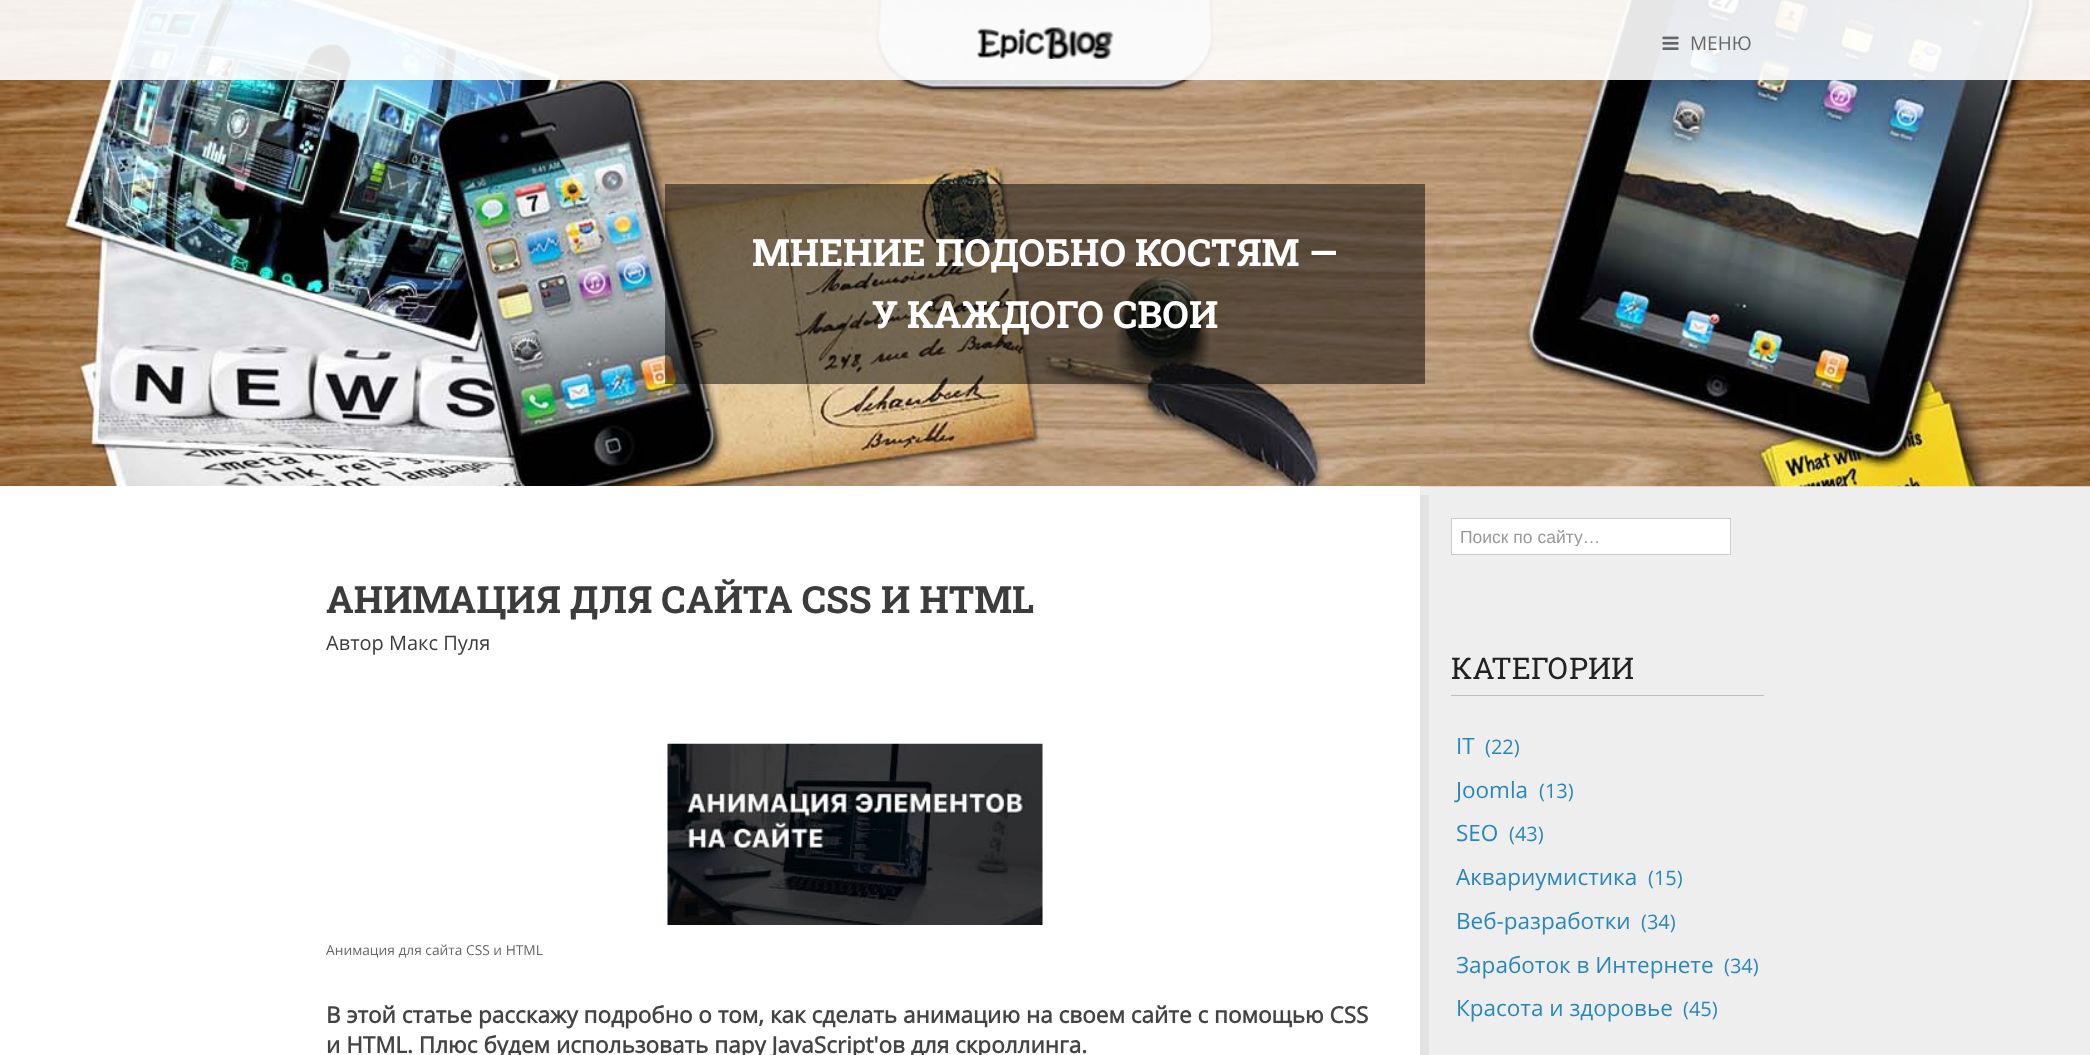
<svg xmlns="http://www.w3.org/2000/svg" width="2090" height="1055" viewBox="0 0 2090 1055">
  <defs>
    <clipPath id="clip1"><rect x="1460" y="526" width="263" height="20"/></clipPath>
  </defs>
  <rect width="100%" height="100%" fill="rgb(238,238,238)"/>
  <image x="0" y="0" width="2090" height="487" href="pic1.png"/>
  <rect x="0" y="0" width="2090" height="80" fill="rgba(255,255,255,0.9)"/>
  <image x="977" y="27" width="137" height="32" href="pic2.png"/>
  <image x="1662" y="36" width="17" height="14" href="pic3.png"/>
  <text x="1690" y="50" font-family="Open Sans" font-size="19" fill="rgb(102,102,102)">МЕНЮ</text>
  <rect x="665" y="184" width="760" height="200" fill="rgba(0,0,0,0.5)"/>
  <g font-family="Roboto Slab" font-size="37.5" font-weight="bold" fill="rgb(255,255,255)">
    <text x="752" y="266">МНЕНИЕ ПОДОБНО КОСТЯМ —</text>
    <text x="872" y="328">У КАЖДОГО СВОИ</text>
  </g>
  <path d="M-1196 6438V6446H1429V495H1420V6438Z" fill="rgb(226,226,226)"/>
  <rect x="0" y="486" width="1420" height="569" fill="rgb(255,255,255)"/>
  <text x="326" y="613" font-family="Roboto Slab" font-size="37.5" font-weight="bold" fill="rgb(60,60,60)">АНИМАЦИЯ ДЛЯ САЙТА CSS И HTML</text>
  <text x="326" y="650" font-family="Open Sans" font-size="20" fill="rgb(60,60,60)">Автор Макс Пуля</text>
  <image x="667" y="743" width="376" height="182" href="pic4.png"/>
  <text x="326" y="955" font-family="Open Sans" font-size="13.75" fill="rgb(102,102,102)">Анимация для сайта CSS и HTML</text>
  <g font-family="Open Sans" font-size="22.5" font-weight="bold" fill="rgb(68,68,68)">
    <text>
      <tspan x="326" y="1023">В этой статье расскажу подробно о том, как сделать анимацию на своем сайте с помощью CSS</tspan>
      <tspan x="326" y="1053">и HTML. Плюс будем использовать пару JavaScript'ов для скроллинга.</tspan>
    </text>
  </g>
  <rect x="1451.5" y="518.5" width="279" height="36" fill="rgb(255,255,255)" stroke="rgb(204,204,204)"/>
  <g clip-path="url(#clip1)">
    <text x="1460" y="543" font-family="Liberation Sans" font-size="17.5" fill="rgb(153,153,153)">Поиск по сайту…</text>
  </g>
  <rect x="1451" y="695" width="313" height="1" fill="rgb(190,190,190)"/>
  <text x="1451" y="679" font-family="Roboto Slab" font-size="30" fill="rgb(34,34,34)">КАТЕГОРИИ</text>
  <text x="1456" y="754" font-family="Open Sans" font-size="22.5" fill="rgb(42,135,185)">IT</text>
  <text x="1485" y="754" font-family="Open Sans" font-size="20" fill="rgb(42,135,185)">(22)</text>
  <text x="1456" y="798" font-family="Open Sans" font-size="22.5" fill="rgb(42,135,185)">Joomla</text>
  <text x="1539" y="798" font-family="Open Sans" font-size="20" fill="rgb(42,135,185)">(13)</text>
  <text x="1456" y="841" font-family="Open Sans" font-size="22.5" fill="rgb(42,135,185)">SEO</text>
  <text x="1509" y="841" font-family="Open Sans" font-size="20" fill="rgb(42,135,185)">(43)</text>
  <text x="1456" y="885" font-family="Open Sans" font-size="22.5" fill="rgb(42,135,185)">Аквариумистика</text>
  <text x="1648" y="885" font-family="Open Sans" font-size="20" fill="rgb(42,135,185)">(15)</text>
  <text x="1456" y="929" font-family="Open Sans" font-size="22.5" fill="rgb(42,135,185)">Веб-разработки</text>
  <text x="1641" y="929" font-family="Open Sans" font-size="20" fill="rgb(42,135,185)">(34)</text>
  <text x="1456" y="973" font-family="Open Sans" font-size="22.5" fill="rgb(42,135,185)">Заработок в Интернете</text>
  <text x="1724" y="973" font-family="Open Sans" font-size="20" fill="rgb(42,135,185)">(34)</text>
  <text x="1456" y="1016" font-family="Open Sans" font-size="22.5" fill="rgb(42,135,185)">Красота и здоровье</text>
  <text x="1683" y="1016" font-family="Open Sans" font-size="20" fill="rgb(42,135,185)">(45)</text>
</svg>
